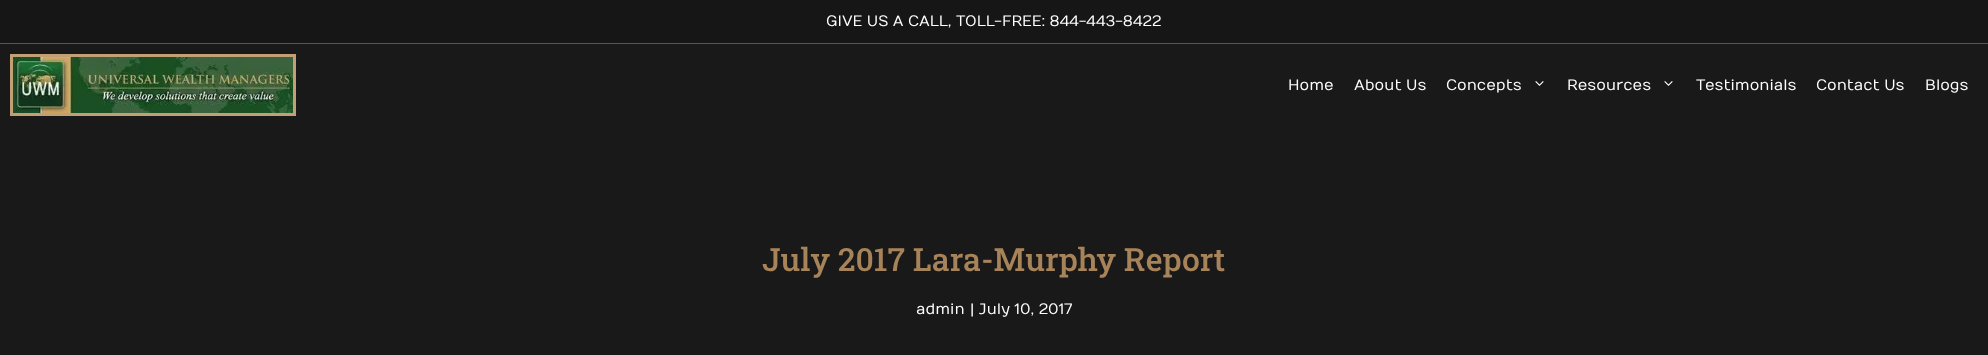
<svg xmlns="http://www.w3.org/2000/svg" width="1988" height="355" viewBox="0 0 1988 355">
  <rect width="100%" height="100%" fill="rgb(25,25,25)"/>
  <rect x="0" y="0" width="1988" height="43" fill="rgb(22,22,22)"/>
  <rect x="0" y="43" width="1988" height="1" fill="rgb(86,86,86)"/>
  <text x="826" y="26" font-family="Numans" font-size="15" fill="rgb(255,255,255)">GIVE US A CALL, TOLL-FREE: 844-443-8422</text>
  <rect x="11.5" y="55.5" width="283" height="59" fill="none" stroke="rgb(195,159,117)" stroke-width="3"/>
  <image x="13" y="57" width="280" height="56" href="pic1.png"/>
  <g font-family="Numans" font-size="15" fill="rgb(255,255,255)">
    <text x="1288" y="90">Home</text>
    <text x="1354" y="90">About Us</text>
    <text x="1446" y="90">Concepts</text>
  </g>
  <image x="1535" y="81" width="9" height="5" href="pic2.png"/>
  <text x="1567" y="90" font-family="Numans" font-size="15" fill="rgb(255,255,255)">Resources</text>
  <image x="1664" y="81" width="9" height="5" href="pic2.png"/>
  <g font-family="Numans" font-size="15" fill="rgb(255,255,255)">
    <text x="1696" y="90">Testimonials</text>
    <text x="1816" y="90">Contact Us</text>
    <text x="1925" y="90">Blogs</text>
  </g>
  <text x="762" y="271" font-family="Roboto Slab" font-size="32" font-weight="500" fill="rgb(167,131,89)">July 2017 Lara-Murphy Report</text>
  <g font-family="Numans" font-size="15" fill="rgb(255,255,255)">
    <text x="916" y="314">admin</text>
    <text x="970" y="314">|</text>
    <text x="979" y="314">July 10, 2017</text>
  </g>
</svg>
